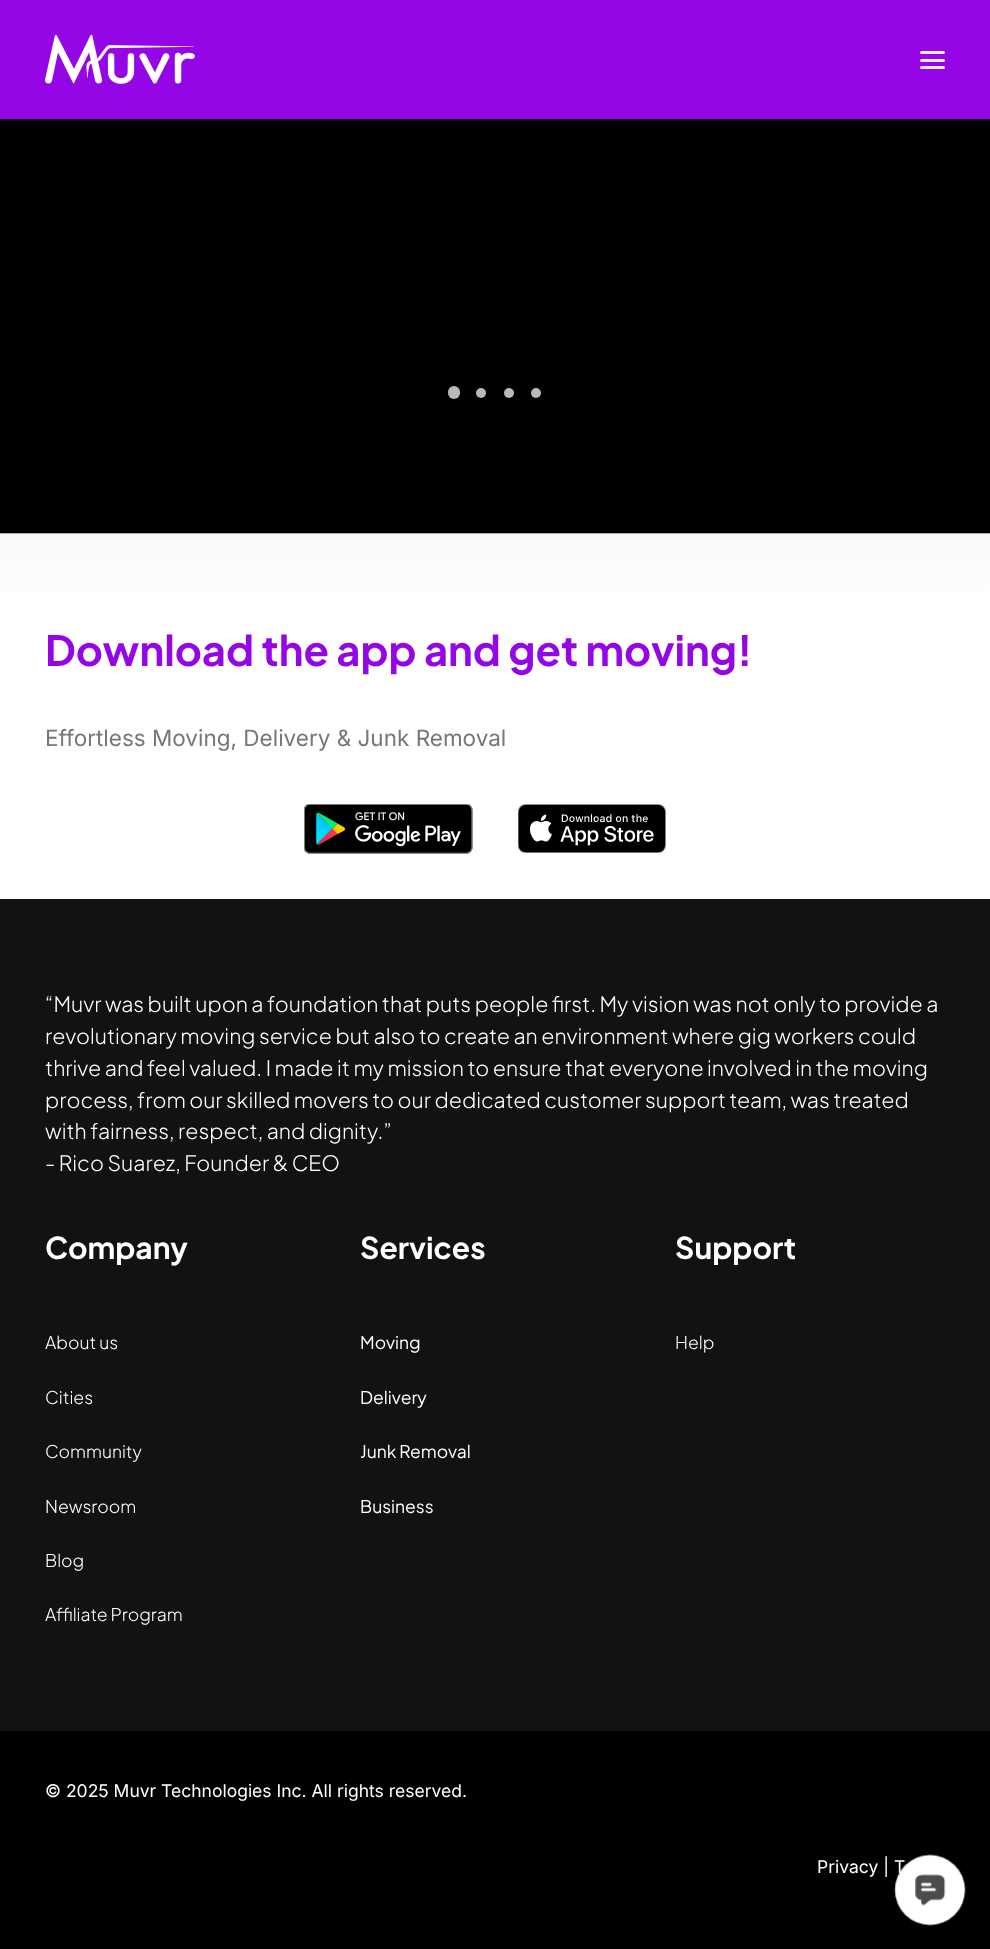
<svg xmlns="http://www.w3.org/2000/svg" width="990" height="1949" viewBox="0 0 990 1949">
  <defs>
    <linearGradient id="g1" gradientUnits="userSpaceOnUse" x1="495" y1="626" x2="495" y2="494"><stop offset="0" stop-color="rgb(247,247,247)" stop-opacity="0"/><stop offset="1" stop-color="rgb(247,247,247)"/></linearGradient>
  </defs>
  <rect width="100%" height="100%" fill="rgb(255,255,255)"/>
  <rect x="0" y="0" width="990" height="119" fill="rgb(149,6,230)"/>
  <image x="45" y="35" width="150" height="49" href="pic1.png"/>
  <rect x="920" y="59" width="25" height="3" rx="1.5" fill="rgb(234,234,234)"/>
  <rect x="920" y="51" width="25" height="3" rx="1.5" fill="rgb(234,234,234)"/>
  <rect x="920" y="66" width="25" height="3" rx="1.5" fill="rgb(234,234,234)"/>
  <rect x="0" y="119" width="990" height="415" fill="rgb(0,0,0)"/>
  <rect x="448" y="386" width="12" height="13" rx="6" fill="rgb(185,185,185)"/>
  <circle cx="481" cy="393" r="5" fill="rgb(185,185,185)"/>
  <circle cx="509" cy="393" r="5" fill="rgb(185,185,185)"/>
  <circle cx="536" cy="393" r="5" fill="rgb(185,185,185)"/>
  <rect x="0" y="533" width="990" height="58" fill="url(#g1)"/>
  <text x="45" y="666" font-family="Plus Jakarta Sans" font-size="41.7" font-weight="bold" fill="rgb(149,6,230)">Download the app and get moving!</text>
  <text x="45" y="746" font-family="Inter" font-size="22.5" fill="rgb(119,119,119)">Effortless Moving, Delivery &amp; Junk Removal</text>
  <image x="304" y="804" width="169" height="50" href="pic2.png"/>
  <image x="518" y="804" width="148" height="49" href="pic3.png"/>
  <rect x="0" y="899" width="990" height="832" fill="rgb(16,18,19)"/>
  <g font-family="Plus Jakarta Sans" font-size="21.25" font-weight="300" fill="rgb(255,255,255)">
    <text>
      <tspan x="45" y="1012">“Muvr was built upon a foundation that puts people first. My vision was not only to provide a</tspan>
      <tspan x="45" y="1044">revolutionary moving service but also to create an environment where gig workers could</tspan>
      <tspan x="45" y="1076">thrive and feel valued. I made it my mission to ensure that everyone involved in the moving</tspan>
      <tspan x="45" y="1108">process, from our skilled movers to our dedicated customer support team, was treated</tspan>
      <tspan x="45" y="1139">with fairness, respect, and dignity.”</tspan>
      <tspan x="45" y="1171">- Rico Suarez, Founder &amp; CEO</tspan>
    </text>
  </g>
  <text x="45" y="1259" font-family="Plus Jakarta Sans" font-size="30" font-weight="bold" fill="rgb(255,255,255)">Company</text>
  <g font-family="Plus Jakarta Sans" font-size="17.5" font-weight="300" fill="rgb(255,255,255)">
    <text x="45" y="1349">About us</text>
    <text x="45" y="1404">Cities</text>
    <text x="45" y="1458">Community</text>
    <text x="45" y="1513">Newsroom</text>
    <text x="45" y="1567">Blog</text>
    <text x="45" y="1621">Affiliate Program</text>
  </g>
  <text x="360" y="1259" font-family="Plus Jakarta Sans" font-size="30" font-weight="bold" fill="rgb(255,255,255)">Services</text>
  <g font-family="Plus Jakarta Sans" font-size="17.5" fill="rgb(255,255,255)">
    <text x="360" y="1349">Moving</text>
    <text x="360" y="1404">Delivery</text>
    <text x="360" y="1458">Junk Removal</text>
    <text x="360" y="1513">Business</text>
  </g>
  <text x="675" y="1259" font-family="Plus Jakarta Sans" font-size="30" font-weight="bold" fill="rgb(255,255,255)">Support</text>
  <text x="675" y="1349" font-family="Plus Jakarta Sans" font-size="17.5" font-weight="300" fill="rgb(255,255,255)">Help</text>
  <rect x="0" y="1731" width="990" height="218" fill="rgb(0,0,0)"/>
  <g font-family="Inter" font-size="17.5" fill="rgb(255,255,255)">
    <text x="45" y="1797">© 2025 Muvr Technologies Inc. All rights reserved.</text>
    <text x="817" y="1873">Privacy | T</text>
  </g>
  <image x="894" y="1854" width="72" height="72" href="pic4.png"/>
</svg>
